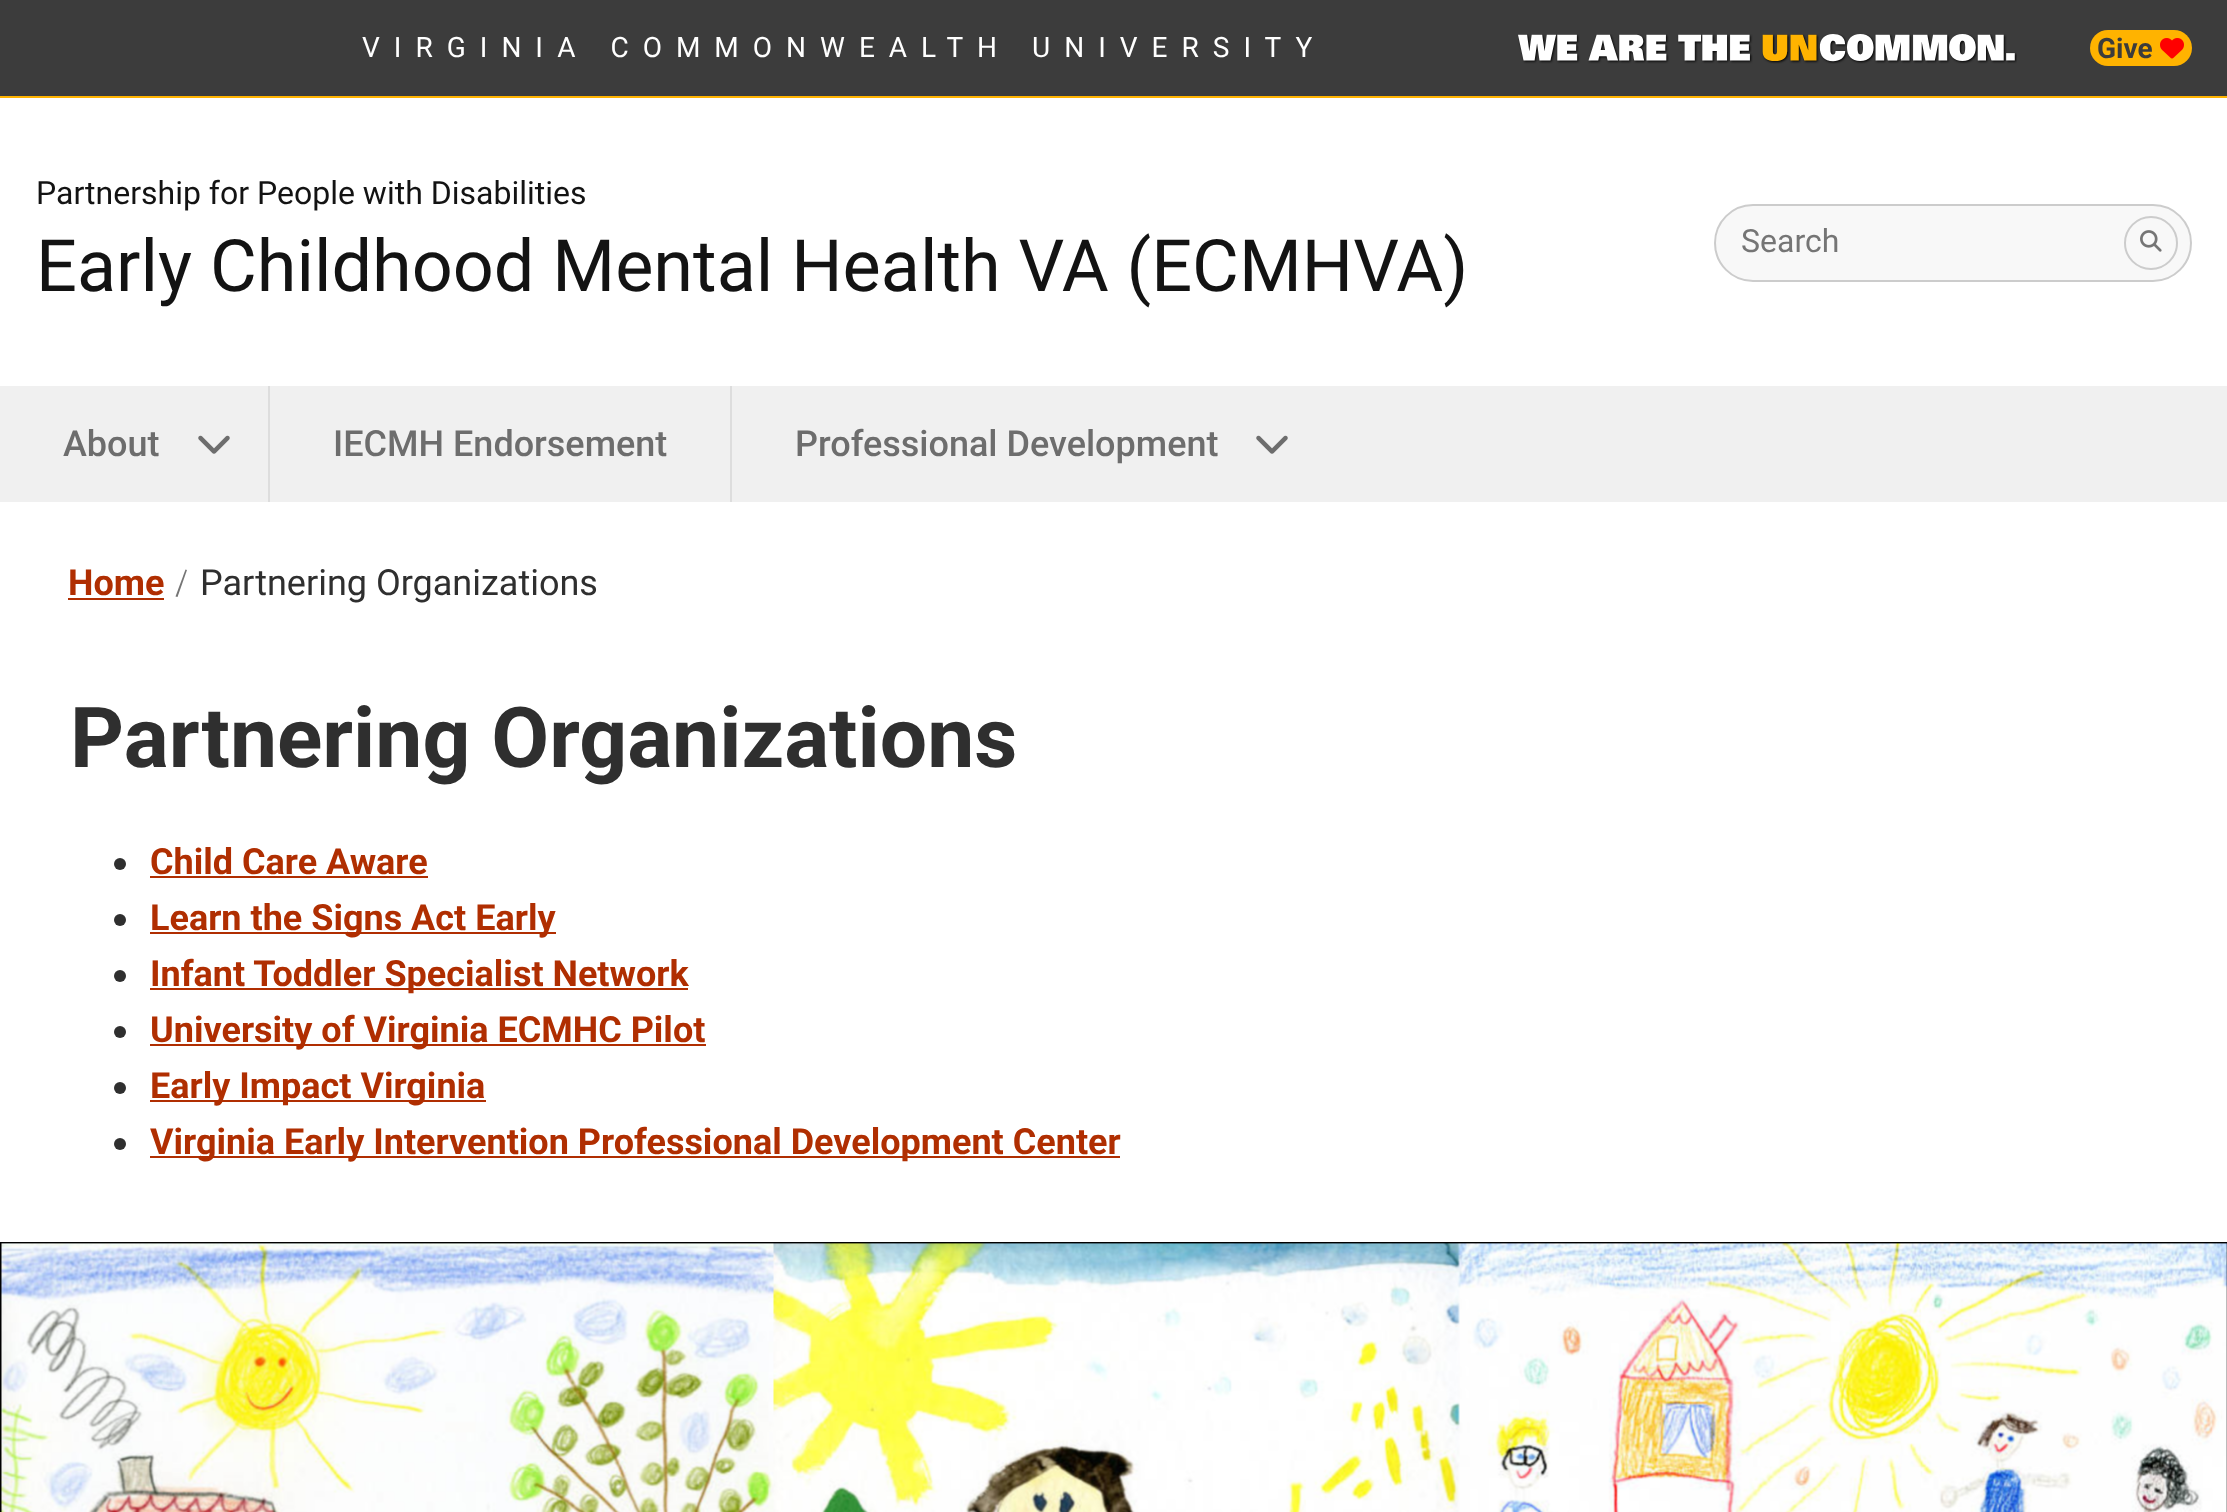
<svg xmlns="http://www.w3.org/2000/svg" width="2227" height="1512" viewBox="0 0 2227 1512">
  <rect width="100%" height="100%" fill="rgb(255,255,255)"/>
  <rect x="0" y="0" width="2227" height="96" fill="rgb(60,60,60)"/>
  <text x="362" y="57" font-family="Roboto" font-size="28" letter-spacing="14" fill="rgb(255,255,255)">VIRGINIA COMMONWEALTH UNIVERSITY</text>
  <image x="1518" y="34" width="499" height="30" href="pic1.png"/>
  <rect x="2090" y="30" width="102" height="36" rx="18" fill="rgb(255,179,0)"/>
  <text x="2097" y="58" font-family="Roboto" font-size="28" font-weight="bold" fill="rgb(60,60,60)">Give</text>
  <image x="2160" y="38" width="24" height="21" href="pic2.png"/>
  <rect x="0" y="96" width="2227" height="2" fill="rgb(255,179,0)"/>
  <text x="36" y="204" font-family="Roboto" font-size="32" fill="rgb(19,19,19)">Partnership for People with Disabilities</text>
  <text x="36" y="291" font-family="Roboto" font-size="72" fill="rgb(19,19,19)">Early Childhood Mental Health VA (ECMHVA)</text>
  <rect x="1715" y="205" width="476" height="76" rx="38" fill="rgb(248,248,248)" stroke="rgb(204,204,204)" stroke-width="2"/>
  <text x="1741" y="252" font-family="Roboto" font-size="32" fill="rgb(117,117,117)">Search</text>
  <circle cx="2151" cy="243" r="26" fill="none" stroke="rgb(204,204,204)" stroke-width="2"/>
  <image x="2140" y="230" width="22" height="22" href="pic3.png"/>
  <rect x="0" y="386" width="2227" height="116" fill="rgb(240,240,240)"/>
  <rect x="268" y="386" width="2" height="116" fill="rgb(221,221,221)"/>
  <text x="63" y="456" font-family="Roboto" font-size="36" font-weight="500" fill="rgb(109,109,109)">About</text>
  <image x="198" y="435" width="32" height="19" href="pic4.png"/>
  <rect x="730" y="386" width="2" height="116" fill="rgb(221,221,221)"/>
  <g font-family="Roboto" font-size="36" font-weight="500" fill="rgb(109,109,109)">
    <text x="333" y="456">IECMH Endorsement</text>
    <text x="795" y="456">Professional Development</text>
  </g>
  <image x="1256" y="435" width="32" height="19" href="pic4.png"/>
  <text x="68" y="595" font-family="Roboto" font-size="36" font-weight="bold" fill="rgb(176,46,1)">Home</text>
  <rect x="68" y="598" width="96" height="2" fill="rgb(176,46,1)"/>
  <path d="M185.5 569.5L187 570L177.5 597L175.5 596.5Z" fill="rgb(117,117,117)"/>
  <text x="200" y="595" font-family="Roboto" font-size="36" fill="rgb(47,47,47)">Partnering Organizations</text>
  <text x="70" y="767" font-family="Roboto" font-size="84" font-weight="bold" fill="rgb(47,47,47)">Partnering Organizations</text>
  <circle cx="120" cy="864" r="6" fill="rgb(47,47,47)"/>
  <text x="150" y="874" font-family="Roboto" font-size="36" font-weight="bold" fill="rgb(176,46,1)">Child Care Aware</text>
  <rect x="150" y="876" width="278" height="2" fill="rgb(176,46,1)"/>
  <circle cx="120" cy="920" r="6" fill="rgb(47,47,47)"/>
  <rect x="150" y="932" width="406" height="2" fill="rgb(176,46,1)"/>
  <text x="150" y="930" font-family="Roboto" font-size="36" font-weight="bold" fill="rgb(176,46,1)">Learn the Signs Act Early</text>
  <circle cx="120" cy="976" r="6" fill="rgb(47,47,47)"/>
  <rect x="150" y="988" width="538" height="2" fill="rgb(176,46,1)"/>
  <text x="150" y="986" font-family="Roboto" font-size="36" font-weight="bold" fill="rgb(176,46,1)">Infant Toddler Specialist Network</text>
  <circle cx="120" cy="1032" r="6" fill="rgb(47,47,47)"/>
  <rect x="150" y="1044" width="556" height="2" fill="rgb(176,46,1)"/>
  <text x="150" y="1042" font-family="Roboto" font-size="36" font-weight="bold" fill="rgb(176,46,1)">University of Virginia ECMHC Pilot</text>
  <circle cx="120" cy="1088" r="6" fill="rgb(47,47,47)"/>
  <rect x="150" y="1100" width="336" height="2" fill="rgb(176,46,1)"/>
  <text x="150" y="1098" font-family="Roboto" font-size="36" font-weight="bold" fill="rgb(176,46,1)">Early Impact Virginia</text>
  <circle cx="120" cy="1144" r="6" fill="rgb(47,47,47)"/>
  <rect x="150" y="1156" width="970" height="2" fill="rgb(176,46,1)"/>
  <text x="150" y="1154" font-family="Roboto" font-size="36" font-weight="bold" fill="rgb(176,46,1)">Virginia Early Intervention Professional Development Center</text>
  <rect x="0" y="1242" width="2227" height="270" fill="rgb(0,0,0)"/>
  <image x="1" y="1243" width="2226" height="269" href="pic5.png"/>
</svg>
